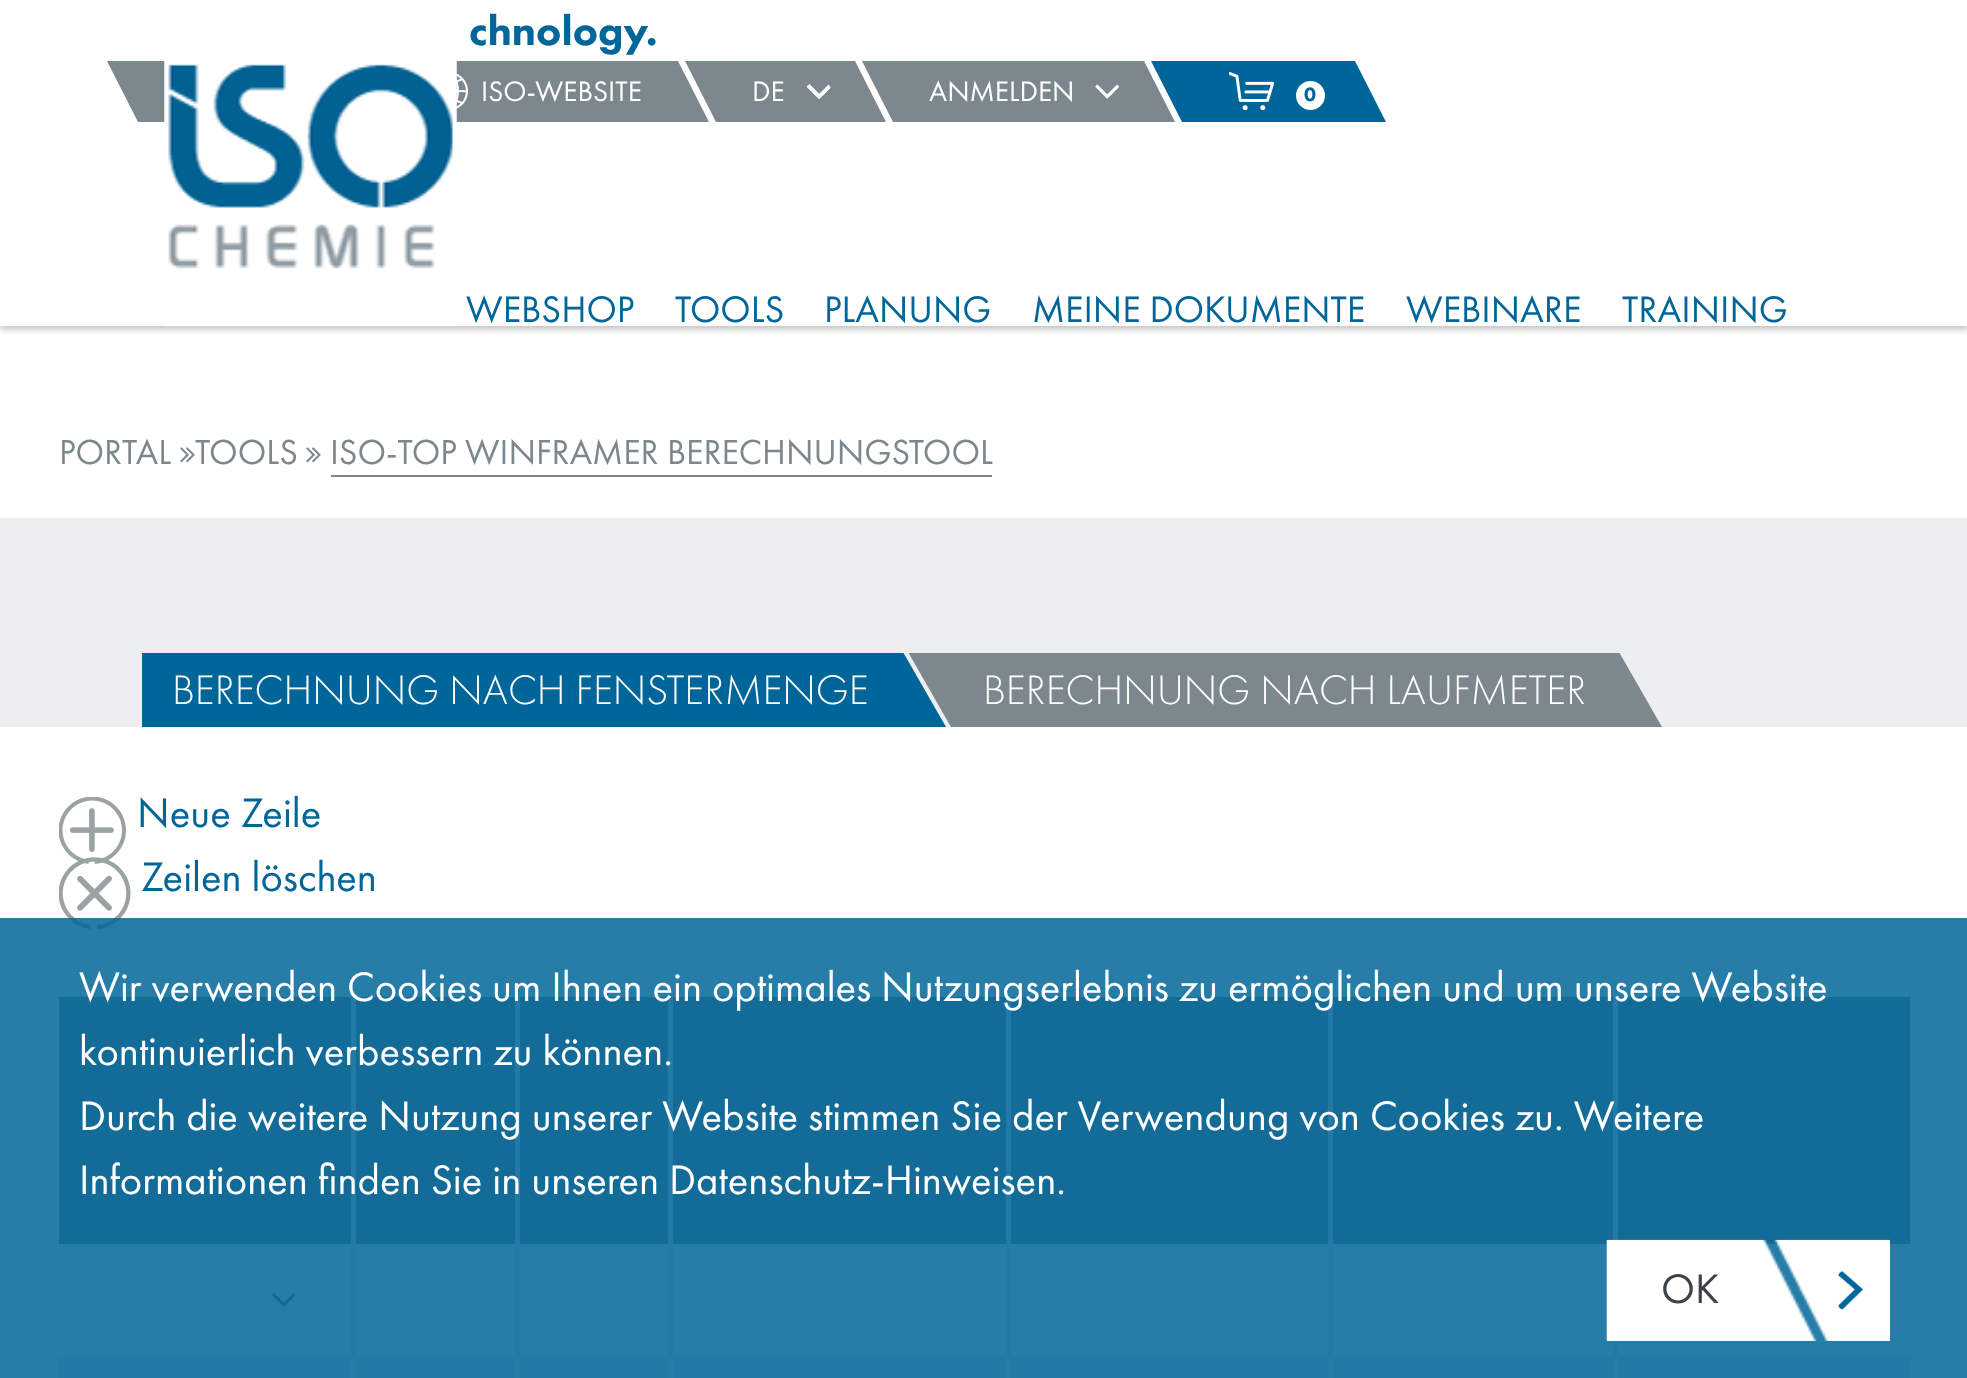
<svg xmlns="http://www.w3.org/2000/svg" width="1967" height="1378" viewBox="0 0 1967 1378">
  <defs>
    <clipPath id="clip1"><rect x="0" y="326" width="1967" height="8"/></clipPath>
    <clipPath id="clip2"><rect x="142" y="653" width="1687" height="74"/></clipPath>
  </defs>
  <rect width="100%" height="100%" fill="rgb(255,255,255)"/>
  <g clip-path="url(#clip1)">
    <rect x="0" y="2" width="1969" height="327" fill="rgba(37,37,37,0.3)" filter="blur(3.5px)"/>
  </g>
  <rect x="145" y="61" width="20" height="40" fill="rgb(125,135,142)"/>
  <path d="M107 61H145L176 122H138Z" fill="rgb(125,135,142)"/>
  <rect x="456" y="61" width="215" height="61" fill="rgb(125,135,142)"/>
  <image x="456" y="73" width="12" height="36" href="pic2.png"/>
  <image x="164" y="13" width="293" height="314" href="pic1.png"/>
  <text x="469" y="45" font-family="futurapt" font-size="42.75" font-weight="600" fill="rgb(0,102,153)">chnology.</text>
  <text x="481" y="101" font-family="futurapt" font-size="29.25" fill="rgb(255,255,255)">ISO-WEBSITE</text>
  <path d="M640 61H678L709 122H671Z" fill="rgb(125,135,142)"/>
  <rect x="723" y="61" width="125" height="61" fill="rgb(125,135,142)"/>
  <path d="M685 61H723L754 122H716Z" fill="rgb(125,135,142)"/>
  <text x="752" y="101" font-family="futurapt" font-size="29.25" fill="rgb(255,255,255)">DE</text>
  <image x="807" y="84" width="24" height="15" href="pic3.png"/>
  <image x="807" y="84" width="24" height="15" href="pic4.png"/>
  <image x="807" y="84" width="24" height="15" href="pic5.png"/>
  <image x="807" y="84" width="24" height="15" href="pic6.png"/>
  <image x="807" y="84" width="24" height="15" href="pic7.png"/>
  <image x="807" y="84" width="24" height="15" href="pic8.png"/>
  <path d="M817 61H855L886 122H848Z" fill="rgb(125,135,142)"/>
  <rect x="900" y="61" width="237" height="61" fill="rgb(125,135,142)"/>
  <text x="929" y="101" font-family="futurapt" font-size="29.25" fill="rgb(255,255,255)">ANMELDEN</text>
  <path d="M862 61H900L931 122H893Z" fill="rgb(125,135,142)"/>
  <image x="1095" y="84" width="25" height="15" href="pic9.png"/>
  <path d="M1106 61H1144L1175 122H1137Z" fill="rgb(125,135,142)"/>
  <rect x="1189" y="61" width="159" height="61" fill="rgb(0,102,153)"/>
  <path d="M1151 61H1189L1220 122H1182Z" fill="rgb(0,102,153)"/>
  <image x="1229" y="72" width="45" height="38" href="pic10.png"/>
  <circle cx="1310.5" cy="95.5" r="14.5" fill="rgb(255,255,255)"/>
  <text x="1304" y="101" font-family="futurapt" font-size="20" font-weight="600" fill="rgb(0,102,153)">0</text>
  <path d="M1317 61H1355L1386 122H1348Z" fill="rgb(0,102,153)"/>
  <g font-family="futurapt" font-size="38.25" fill="rgb(0,102,153)">
    <text x="466" y="322">WEBSHOP</text>
    <text x="675" y="322">TOOLS</text>
    <text x="824" y="322">PLANUNG</text>
    <text x="1032" y="322">MEINE DOKUMENTE</text>
    <text x="1406" y="322">WEBINARE</text>
    <text x="1622" y="322">TRAINING</text>
  </g>
  <text x="59" y="464" font-family="futurapt" font-size="36" fill="rgb(125,135,142)">PORTAL</text>
  <image x="180" y="447" width="15" height="16" href="pic11.png"/>
  <text x="195" y="464" font-family="futurapt" font-size="36" fill="rgb(125,135,142)">TOOLS</text>
  <image x="306" y="447" width="15" height="16" href="pic11.png"/>
  <text x="330" y="464" font-family="futurapt" font-size="36" fill="rgb(125,135,142)">ISO-TOP WINFRAMER BERECHNUNGSTOOL</text>
  <rect x="331" y="475" width="661" height="2" fill="rgb(125,135,142)"/>
  <rect x="0" y="518" width="1967" height="209" fill="rgb(237,238,240)"/>
  <g clip-path="url(#clip2)">
    <path d="M97 652H903L946 727H140Z" fill="rgb(0,102,153)"/>
  </g>
  <text x="172" y="704" font-family="futurapt" font-size="42.75" font-weight="300" fill="rgb(255,255,255)">BERECHNUNG NACH FENSTERMENGE</text>
  <g clip-path="url(#clip2)">
    <path d="M908 652H1619L1662 727H951Z" fill="rgb(125,135,142)"/>
  </g>
  <text x="983" y="704" font-family="futurapt" font-size="42.75" font-weight="300" fill="rgb(255,255,255)">BERECHNUNG NACH LAUFMETER</text>
  <image x="59" y="797" width="67" height="67" href="pic12.png"/>
  <text x="137" y="827" font-family="futurapt" font-size="42.75" fill="rgb(0,102,153)">Neue Zeile</text>
  <image x="59" y="857" width="72" height="72" href="pic13.png"/>
  <text x="141" y="891" font-family="futurapt" font-size="42.75" fill="rgb(0,102,153)">Zeilen löschen</text>
  <rect x="59" y="997" width="292" height="247" fill="rgb(125,135,142)"/>
  <rect x="356" y="997" width="159" height="247" fill="rgb(125,135,142)"/>
  <rect x="520" y="997" width="148" height="247" fill="rgb(125,135,142)"/>
  <rect x="673" y="997" width="333" height="247" fill="rgb(125,135,142)"/>
  <rect x="1011" y="997" width="317" height="247" fill="rgb(125,135,142)"/>
  <rect x="1333" y="997" width="280" height="247" fill="rgb(125,135,142)"/>
  <rect x="1613" y="997" width="5" height="250" fill="rgb(234,235,237)"/>
  <rect x="1618" y="997" width="292" height="247" fill="rgb(125,135,142)"/>
  <rect x="59" y="1357" width="1851" height="21" fill="rgb(234,235,237)"/>
  <rect x="351" y="1355" width="5" height="23" fill="rgb(255,255,255)"/>
  <rect x="351" y="997" width="5" height="362" fill="rgb(234,235,237)"/>
  <image x="271" y="1293" width="25" height="14" href="pic14.png"/>
  <rect x="515" y="1355" width="5" height="23" fill="rgb(255,255,255)"/>
  <rect x="515" y="997" width="5" height="362" fill="rgb(234,235,237)"/>
  <rect x="668" y="1355" width="5" height="23" fill="rgb(255,255,255)"/>
  <rect x="668" y="997" width="5" height="362" fill="rgb(234,235,237)"/>
  <rect x="1006" y="1355" width="5" height="23" fill="rgb(255,255,255)"/>
  <rect x="1006" y="997" width="5" height="362" fill="rgb(234,235,237)"/>
  <rect x="1328" y="1355" width="5" height="23" fill="rgb(255,255,255)"/>
  <rect x="1328" y="997" width="5" height="362" fill="rgb(234,235,237)"/>
  <rect x="1613" y="1355" width="5" height="23" fill="rgb(255,255,255)"/>
  <rect x="1613" y="1341" width="5" height="18" fill="rgb(234,235,237)"/>
  <rect x="0" y="918" width="1967" height="460" fill="rgba(0,102,153,0.85)"/>
  <g font-family="futurapt" font-size="42.75" fill="rgb(255,255,255)">
    <text>
      <tspan x="79" y="1001">Wir verwenden Cookies um Ihnen ein optimales Nutzungserlebnis zu ermöglichen und um unsere Website</tspan>
      <tspan x="79" y="1065">kontinuierlich verbessern zu können.</tspan>
      <tspan x="79" y="1130">Durch die weitere Nutzung unserer Website stimmen Sie der Verwendung von Cookies zu. Weitere</tspan>
      <tspan x="79" y="1194">Informationen finden Sie in unseren Datenschutz-Hinweisen.</tspan>
    </text>
  </g>
  <image x="1606" y="1239" width="284" height="102" href="pic15.png"/>
  <text x="1661" y="1303" font-family="futurapt" font-size="42.75" fill="rgb(61,67,70)">OK</text>
  <image x="1838" y="1271" width="25" height="39" href="pic16.png"/>
</svg>
